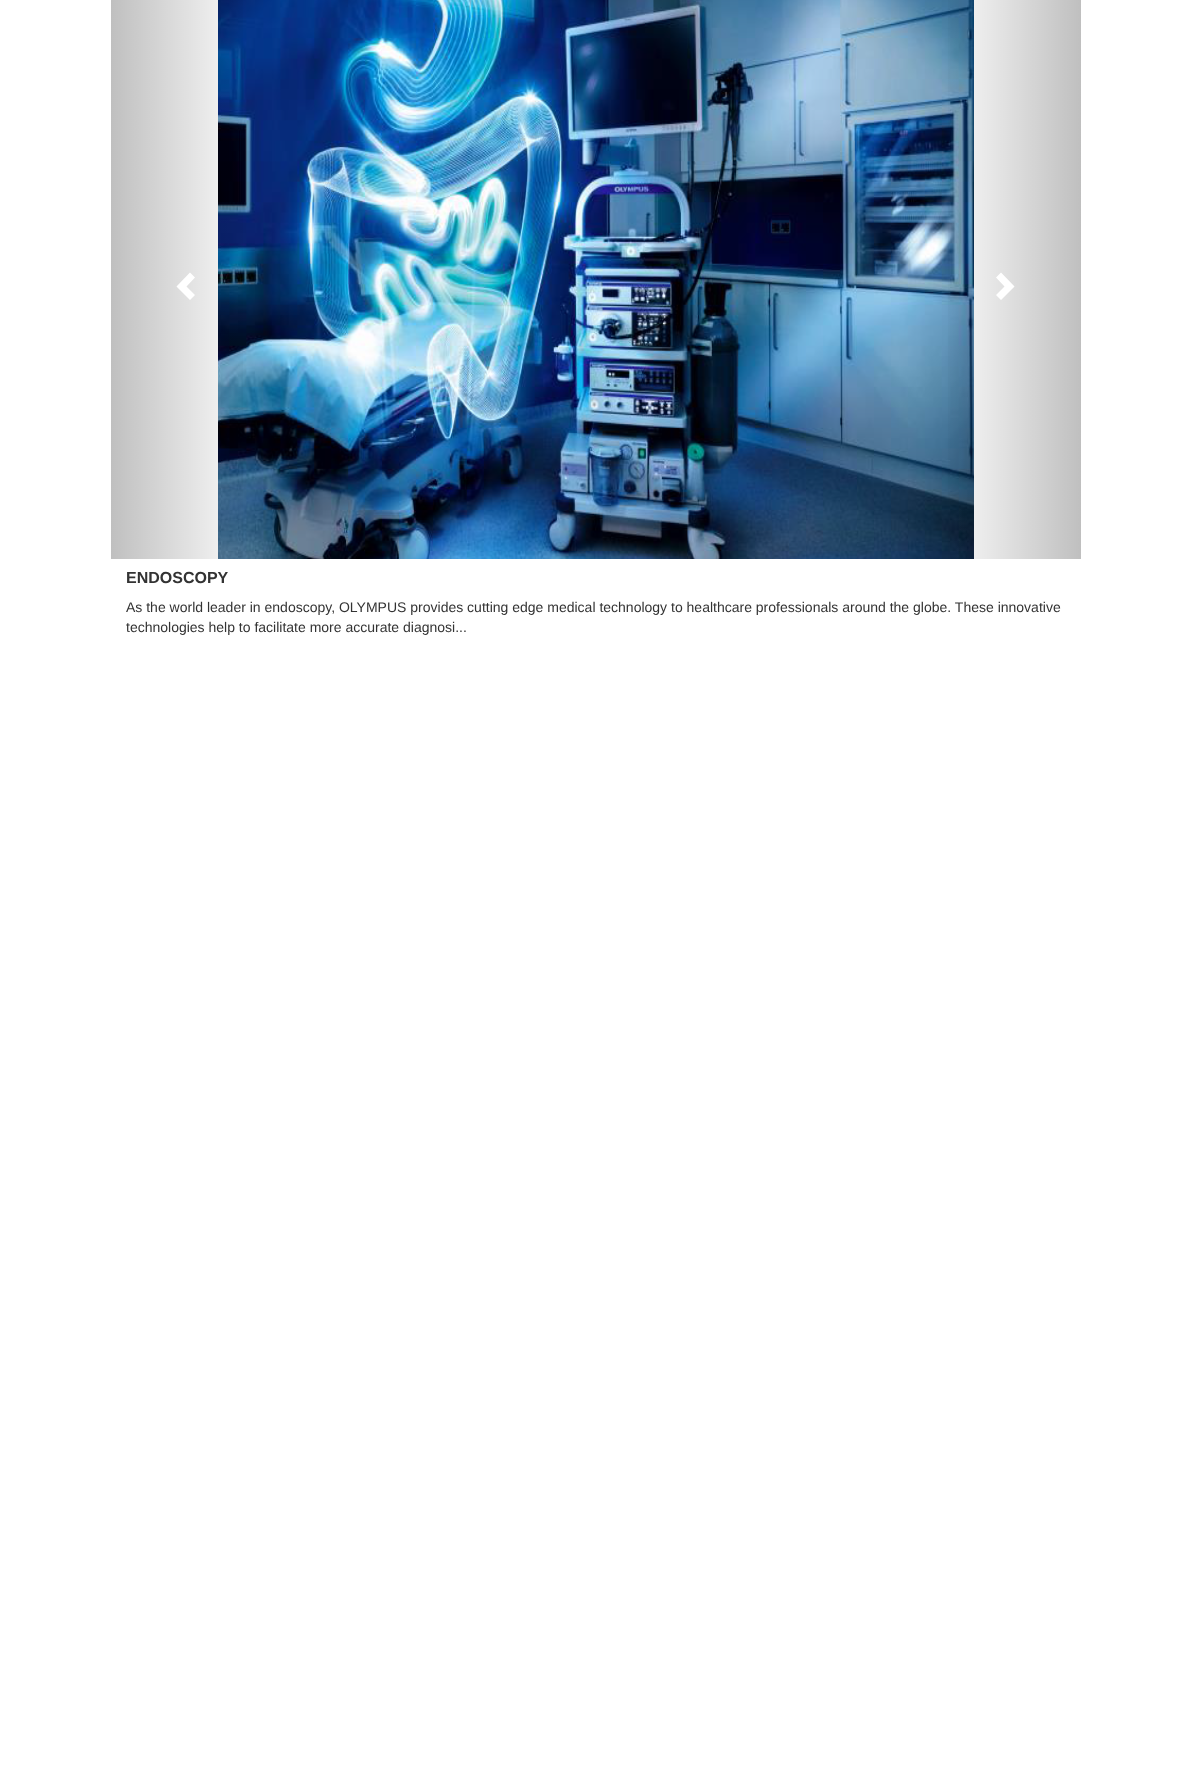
<svg xmlns="http://www.w3.org/2000/svg" width="1191" height="1775" viewBox="0 0 1191 1775">
  <defs>
    <linearGradient id="g1" gradientUnits="userSpaceOnUse" x1="111" y1="280" x2="256" y2="280"><stop offset="0" stop-color="rgb(0,0,0)" stop-opacity="0.25"/><stop offset="1" stop-color="rgb(0,0,0)" stop-opacity="0"/></linearGradient>
    <linearGradient id="g2" gradientUnits="userSpaceOnUse" x1="935" y1="280" x2="1081" y2="280"><stop offset="0" stop-color="rgb(0,0,0)" stop-opacity="0"/><stop offset="1" stop-color="rgb(0,0,0)" stop-opacity="0.25"/></linearGradient>
  </defs>
  <rect width="100%" height="100%" fill="rgb(255,255,255)"/>
  <image x="218" y="0" width="756" height="559" href="pic1.png"/>
  <rect x="111" y="0" width="132" height="559" fill="url(#g1)"/>
  <path d="M195 277.5L186.5 286.5L195 295L190 300L176.5 286.5L190 272.5Z" fill="rgb(255,255,255)"/>
  <rect x="948" y="0" width="133" height="559" fill="url(#g2)"/>
  <path d="M1014.5 286.5L1001 300L996 295L1004.5 286.5L996 277.5L1001 272.5Z" fill="rgb(255,255,255)"/>
  <text x="126" y="583" font-family="Liberation Sans" font-size="16" font-weight="bold" fill="rgb(51,51,51)">ENDOSCOPY</text>
  <g font-family="Liberation Sans" font-size="14" fill="rgb(51,51,51)">
    <text>
      <tspan x="126" y="612">As the world leader in endoscopy, OLYMPUS provides cutting edge medical technology to healthcare professionals around the globe. These innovative</tspan>
      <tspan x="126" y="632">technologies help to facilitate more accurate diagnosi...</tspan>
    </text>
  </g>
</svg>
